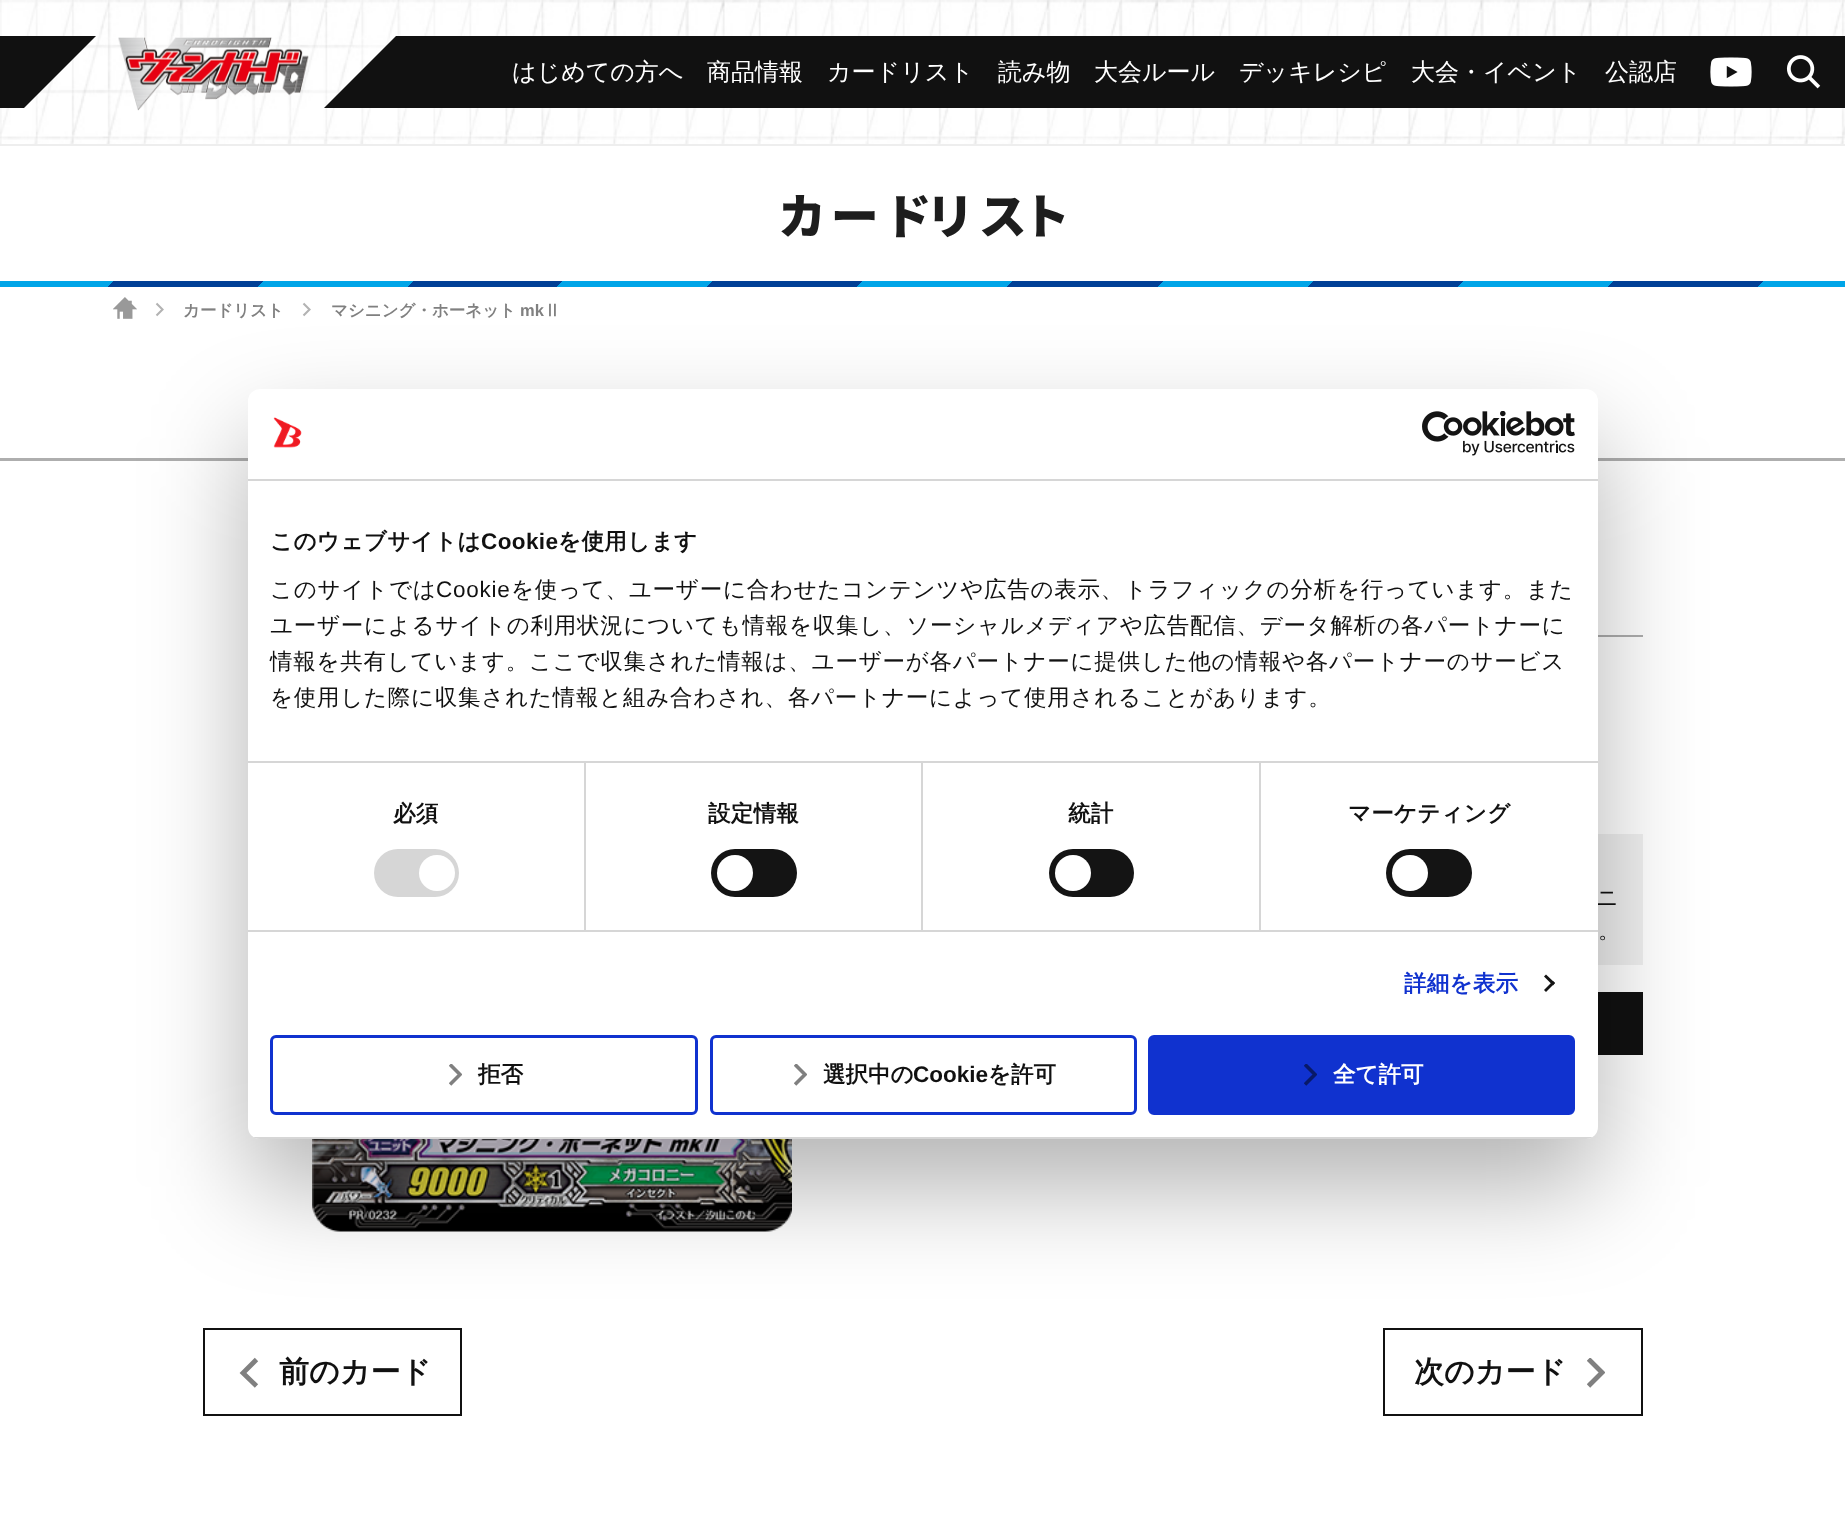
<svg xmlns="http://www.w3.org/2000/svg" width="1845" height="1525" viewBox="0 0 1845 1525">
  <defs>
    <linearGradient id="g1" gradientUnits="userSpaceOnUse" x1="113" y1="581" x2="-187" y2="281"><stop offset="0.25" stop-color="rgb(0,165,232)"/><stop offset="0.25" stop-color="rgb(0,64,150)"/><stop offset="0.5" stop-color="rgb(0,64,150)"/><stop offset="0.5" stop-color="rgb(0,165,232)"/><stop offset="0.75" stop-color="rgb(0,165,232)"/><stop offset="0.75" stop-color="rgb(0,64,150)"/><stop offset="1" stop-color="rgb(0,64,150)"/></linearGradient>
    <linearGradient id="g2" gradientUnits="userSpaceOnUse" x1="413" y1="581" x2="113" y2="281"><stop offset="0.25" stop-color="rgb(0,165,232)"/><stop offset="0.25" stop-color="rgb(0,64,150)"/><stop offset="0.5" stop-color="rgb(0,64,150)"/><stop offset="0.5" stop-color="rgb(0,165,232)"/><stop offset="0.75" stop-color="rgb(0,165,232)"/><stop offset="0.75" stop-color="rgb(0,64,150)"/><stop offset="1" stop-color="rgb(0,64,150)"/></linearGradient>
    <linearGradient id="g3" gradientUnits="userSpaceOnUse" x1="713" y1="581" x2="413" y2="281"><stop offset="0.25" stop-color="rgb(0,165,232)"/><stop offset="0.25" stop-color="rgb(0,64,150)"/><stop offset="0.5" stop-color="rgb(0,64,150)"/><stop offset="0.5" stop-color="rgb(0,165,232)"/><stop offset="0.75" stop-color="rgb(0,165,232)"/><stop offset="0.75" stop-color="rgb(0,64,150)"/><stop offset="1" stop-color="rgb(0,64,150)"/></linearGradient>
    <linearGradient id="g4" gradientUnits="userSpaceOnUse" x1="1013" y1="581" x2="713" y2="281"><stop offset="0.25" stop-color="rgb(0,165,232)"/><stop offset="0.25" stop-color="rgb(0,64,150)"/><stop offset="0.5" stop-color="rgb(0,64,150)"/><stop offset="0.5" stop-color="rgb(0,165,232)"/><stop offset="0.75" stop-color="rgb(0,165,232)"/><stop offset="0.75" stop-color="rgb(0,64,150)"/><stop offset="1" stop-color="rgb(0,64,150)"/></linearGradient>
    <linearGradient id="g5" gradientUnits="userSpaceOnUse" x1="1313" y1="581" x2="1013" y2="281"><stop offset="0.25" stop-color="rgb(0,165,232)"/><stop offset="0.25" stop-color="rgb(0,64,150)"/><stop offset="0.5" stop-color="rgb(0,64,150)"/><stop offset="0.5" stop-color="rgb(0,165,232)"/><stop offset="0.75" stop-color="rgb(0,165,232)"/><stop offset="0.75" stop-color="rgb(0,64,150)"/><stop offset="1" stop-color="rgb(0,64,150)"/></linearGradient>
    <linearGradient id="g6" gradientUnits="userSpaceOnUse" x1="1613" y1="581" x2="1313" y2="281"><stop offset="0.25" stop-color="rgb(0,165,232)"/><stop offset="0.25" stop-color="rgb(0,64,150)"/><stop offset="0.5" stop-color="rgb(0,64,150)"/><stop offset="0.5" stop-color="rgb(0,165,232)"/><stop offset="0.75" stop-color="rgb(0,165,232)"/><stop offset="0.75" stop-color="rgb(0,64,150)"/><stop offset="1" stop-color="rgb(0,64,150)"/></linearGradient>
    <linearGradient id="g7" gradientUnits="userSpaceOnUse" x1="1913" y1="581" x2="1613" y2="281"><stop offset="0.25" stop-color="rgb(0,165,232)"/><stop offset="0.25" stop-color="rgb(0,64,150)"/><stop offset="0.5" stop-color="rgb(0,64,150)"/><stop offset="0.5" stop-color="rgb(0,165,232)"/><stop offset="0.75" stop-color="rgb(0,165,232)"/><stop offset="0.75" stop-color="rgb(0,64,150)"/><stop offset="1" stop-color="rgb(0,64,150)"/></linearGradient>
    <clipPath id="clip1"><rect x="1587" y="1358" width="18" height="30"/></clipPath>
    <clipPath id="clip2"><rect x="248" y="389" width="1350" height="750" rx="12"/></clipPath>
    <clipPath id="clip3"><rect x="449" y="1064" width="13" height="22"/></clipPath>
    <clipPath id="clip4"><rect x="794" y="1064" width="13" height="22"/></clipPath>
    <clipPath id="clip5"><rect x="1304" y="1064" width="13" height="22"/></clipPath>
  </defs>
  <rect width="100%" height="100%" fill="rgb(255,255,255)"/>
  <image x="0" y="0" width="1845" height="144" href="pic1.png"/>
  <path d="M-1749 36H96L24 108H-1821Z" fill="rgb(17,17,17)"/>
  <image x="118" y="37" width="191" height="74" href="pic2.png"/>
  <rect x="360" y="36" width="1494" height="72" fill="rgba(255,255,255,0.5)" filter="blur(3px)"/>
  <path d="M396 36H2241L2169 108H324Z" fill="rgb(17,17,17)"/>
  <g font-family="WenQuanYi Zen Hei" font-size="24" font-weight="500" fill="rgb(255,255,255)">
    <text x="512" y="80">はじめての方へ</text>
    <text x="707" y="80">商品情報</text>
    <text x="827" y="80">カードリスト</text>
    <text x="998" y="80">読み物</text>
    <text x="1094" y="80">大会ルール</text>
    <text x="1239" y="80">デッキレシピ</text>
    <text x="1411" y="80">大会・イベント</text>
    <text x="1605" y="80">公認店</text>
  </g>
  <image x="1710" y="57" width="42" height="30" href="pic3.png"/>
  <image x="1786" y="55" width="35" height="34" href="pic4.png"/>
  <rect x="0" y="144" width="1845" height="2" fill="rgb(238,238,238)"/>
  <text x="778" y="234" font-family="Noto Sans JP" font-size="48" font-weight="100" letter-spacing="4.75" fill="rgb(29,29,29)">カード</text>
  <text x="926" y="234" font-family="Noto Sans JP" font-size="48" font-weight="100" letter-spacing="4.75" fill="rgb(29,29,29)">リス</text>
  <text x="1022" y="234" font-family="Noto Sans JP" font-size="48" font-weight="100" letter-spacing="4.75" fill="rgb(29,29,29)">ト</text>
  <rect x="0" y="281" width="113" height="6" fill="url(#g1)"/>
  <rect x="113" y="281" width="300" height="6" fill="url(#g2)"/>
  <rect x="413" y="281" width="300" height="6" fill="url(#g3)"/>
  <rect x="713" y="281" width="300" height="6" fill="url(#g4)"/>
  <rect x="1013" y="281" width="300" height="6" fill="url(#g5)"/>
  <rect x="1313" y="281" width="300" height="6" fill="url(#g6)"/>
  <rect x="1613" y="281" width="232" height="6" fill="url(#g7)"/>
  <image x="113" y="297" width="24" height="22" href="pic5.png"/>
  <path d="M156.5 315.5L162.5 309.5L156.5 303.5" fill="none" stroke="rgb(179,179,179)" stroke-width="2.1"/>
  <text x="183" y="316" font-family="WenQuanYi Zen Hei" font-size="16.5" font-weight="bold" fill="rgb(128,128,128)">カードリスト</text>
  <path d="M303.5 315.5L309.5 309.5L303.5 303.5" fill="none" stroke="rgb(179,179,179)" stroke-width="2.1"/>
  <text x="331" y="316" font-family="WenQuanYi Zen Hei" font-size="16.5" font-weight="bold" fill="rgb(128,128,128)">マシニング・ホーネット</text>
  <text x="520" y="316" font-family="Liberation Sans" font-size="16.5" font-weight="bold" fill="rgb(128,128,128)">mk</text>
  <text x="544" y="316" font-family="WenQuanYi Zen Hei" font-size="16.5" font-weight="bold" fill="rgb(128,128,128)">Ⅱ</text>
  <rect x="0" y="458" width="1845" height="3" fill="rgb(174,174,174)"/>
  <rect x="1598" y="635" width="45" height="2" fill="rgb(174,174,174)"/>
  <rect x="1598" y="834" width="45" height="131" fill="rgb(240,240,240)"/>
  <g font-family="WenQuanYi Zen Hei" font-size="22" font-weight="500" fill="rgb(17,17,17)">
    <text x="1596" y="905">ニ</text>
    <text x="1598" y="938">。</text>
  </g>
  <rect x="1598" y="992" width="45" height="63" fill="rgb(17,17,17)"/>
  <image x="312" y="1139" width="480" height="93" href="pic6.png"/>
  <rect x="204" y="1329" width="257" height="86" fill="none" stroke="rgb(17,17,17)" stroke-width="2"/>
  <path d="M256.5 1359.5L243 1373L256.5 1386" fill="none" stroke="rgb(128,128,128)" stroke-width="4.8"/>
  <text x="279" y="1382" font-family="WenQuanYi Zen Hei" font-size="30" font-weight="bold" fill="rgb(17,17,17)">前のカード</text>
  <rect x="1384" y="1329" width="258" height="86" fill="none" stroke="rgb(17,17,17)" stroke-width="2"/>
  <text x="1414" y="1382" font-family="WenQuanYi Zen Hei" font-size="30" font-weight="bold" fill="rgb(17,17,17)">次のカード</text>
  <g clip-path="url(#clip1)">
    <path d="M1588.5 1386L1602 1372.5L1588.5 1359" fill="none" stroke="rgb(128,128,128)" stroke-width="4.8"/>
  </g>
  <rect x="248" y="437" width="1350" height="750" rx="12" fill="rgba(0,0,0,0.3)" filter="blur(51px)"/>
  <rect x="248" y="389" width="1350" height="750" rx="12" fill="rgb(255,255,255)"/>
  <rect x="248" y="479" width="1350" height="2" fill="rgb(214,214,214)"/>
  <image x="273" y="417" width="29" height="31" href="pic7.png"/>
  <image x="1422" y="411" width="153" height="45" href="pic8.png"/>
  <rect x="584" y="762" width="2" height="168" fill="rgb(214,214,214)"/>
  <rect x="921" y="762" width="2" height="168" fill="rgb(214,214,214)"/>
  <rect x="1259" y="762" width="2" height="168" fill="rgb(214,214,214)"/>
  <rect x="248" y="761" width="1350" height="2" fill="rgb(214,214,214)"/>
  <text x="270" y="549" font-family="WenQuanYi Zen Hei" font-size="22.5" font-weight="bold" letter-spacing="0.4" fill="rgb(17,17,17)">このウェブサイトは</text>
  <text x="481" y="549" font-family="Liberation Sans" font-size="22.5" font-weight="bold" letter-spacing="0.4" fill="rgb(17,17,17)">Cookie</text>
  <text x="558" y="549" font-family="WenQuanYi Zen Hei" font-size="22.5" font-weight="bold" letter-spacing="0.4" fill="rgb(17,17,17)">を使用します</text>
  <text x="270" y="597" font-family="WenQuanYi Zen Hei" font-size="22.5" font-weight="500" letter-spacing="0.75" fill="rgb(17,17,17)">このサイトでは</text>
  <text x="436" y="597" font-family="Liberation Sans" font-size="22.5" letter-spacing="0.75" fill="rgb(17,17,17)">Cookie</text>
  <g font-family="WenQuanYi Zen Hei" font-size="22.5" font-weight="500" letter-spacing="0.75" fill="rgb(17,17,17)">
    <text x="511" y="597">を使って、ユーザーに合わせたコンテンツや広告の表示、トラフィックの分析を行っています。また</text>
    <text>
      <tspan x="270" y="633">ユーザーによるサイトの利用状況についても情報を収集し、ソーシャルメディアや広告配信、データ解析の各パートナーに</tspan>
      <tspan x="270" y="669">情報を共有しています。ここで収集された情報は、ユーザーが各パートナーに提供した他の情報や各パートナーのサービス</tspan>
      <tspan x="270" y="705">を使用した際に収集された情報と組み合わされ、各パートナーによって使用されることがあります。</tspan>
    </text>
  </g>
  <rect x="248" y="930" width="1350" height="2" fill="rgb(214,214,214)"/>
  <text x="393" y="821" font-family="WenQuanYi Zen Hei" font-size="22.5" font-weight="bold" letter-spacing="0.25" fill="rgb(17,17,17)">必須</text>
  <rect x="374" y="849" width="85" height="48" rx="24" fill="rgb(214,214,214)"/>
  <circle cx="437" cy="873" r="18" fill="rgb(255,255,255)"/>
  <text x="708" y="821" font-family="WenQuanYi Zen Hei" font-size="22.5" font-weight="bold" letter-spacing="0.25" fill="rgb(17,17,17)">設定情報</text>
  <rect x="711" y="849" width="86" height="48" rx="24" fill="rgb(20,20,20)"/>
  <circle cx="735" cy="873" r="18" fill="rgb(255,255,255)"/>
  <text x="1068" y="821" font-family="WenQuanYi Zen Hei" font-size="22.5" font-weight="bold" letter-spacing="0.25" fill="rgb(17,17,17)">統計</text>
  <rect x="1049" y="849" width="85" height="48" rx="24" fill="rgb(20,20,20)"/>
  <circle cx="1073" cy="873" r="18" fill="rgb(255,255,255)"/>
  <text x="1348" y="821" font-family="WenQuanYi Zen Hei" font-size="22.5" font-weight="bold" letter-spacing="0.25" fill="rgb(17,17,17)">マーケティング</text>
  <rect x="1386" y="849" width="86" height="48" rx="24" fill="rgb(20,20,20)"/>
  <circle cx="1410" cy="873" r="18" fill="rgb(255,255,255)"/>
  <text x="1404" y="991" font-family="WenQuanYi Zen Hei" font-size="22.5" font-weight="bold" letter-spacing="0.25" fill="rgb(16,50,207)">詳細を表示</text>
  <path d="M1546 974.5L1555 983L1553 985.5L1544 976.5Z" fill="rgb(20,20,20)"/>
  <path d="M1553 981L1555 983L1546 992L1544 990Z" fill="rgb(20,20,20)"/>
  <g clip-path="url(#clip2)">
    <rect x="248" y="1137" width="1350" height="2" fill="rgb(214,214,214)"/>
  </g>
  <rect x="271.5" y="1036.5" width="425" height="77" rx="4.5" fill="none" stroke="rgb(16,50,207)" stroke-width="3"/>
  <g clip-path="url(#clip3)">
    <path d="M450 1084.5L460 1074.5L450 1064.5" fill="none" stroke="rgb(128,128,128)" stroke-width="3.6"/>
  </g>
  <text x="478" y="1082" font-family="WenQuanYi Zen Hei" font-size="22.5" font-weight="bold" fill="rgb(17,17,17)">拒否</text>
  <rect x="711.5" y="1036.5" width="424" height="77" rx="4.5" fill="none" stroke="rgb(16,50,207)" stroke-width="3"/>
  <g clip-path="url(#clip4)">
    <path d="M795 1084.5L805 1074.5L795 1064.5" fill="none" stroke="rgb(128,128,128)" stroke-width="3.6"/>
  </g>
  <text x="823" y="1082" font-family="WenQuanYi Zen Hei" font-size="22.5" font-weight="bold" fill="rgb(17,17,17)">選択中の</text>
  <text x="913" y="1082" font-family="Liberation Sans" font-size="22.5" font-weight="bold" fill="rgb(17,17,17)">Cookie</text>
  <text x="988" y="1082" font-family="WenQuanYi Zen Hei" font-size="22.5" font-weight="bold" fill="rgb(17,17,17)">を許可</text>
  <rect x="1149.5" y="1036.5" width="424" height="77" rx="4.5" fill="rgb(16,50,207)" stroke="rgb(16,50,207)" stroke-width="3"/>
  <g clip-path="url(#clip5)">
    <path d="M1305 1084.5L1315 1074.5L1305 1064.5" fill="none" stroke="rgb(8,25,104)" stroke-width="3.6"/>
  </g>
  <text x="1333" y="1082" font-family="WenQuanYi Zen Hei" font-size="22.5" font-weight="bold" fill="rgb(255,255,255)">全て許可</text>
</svg>
